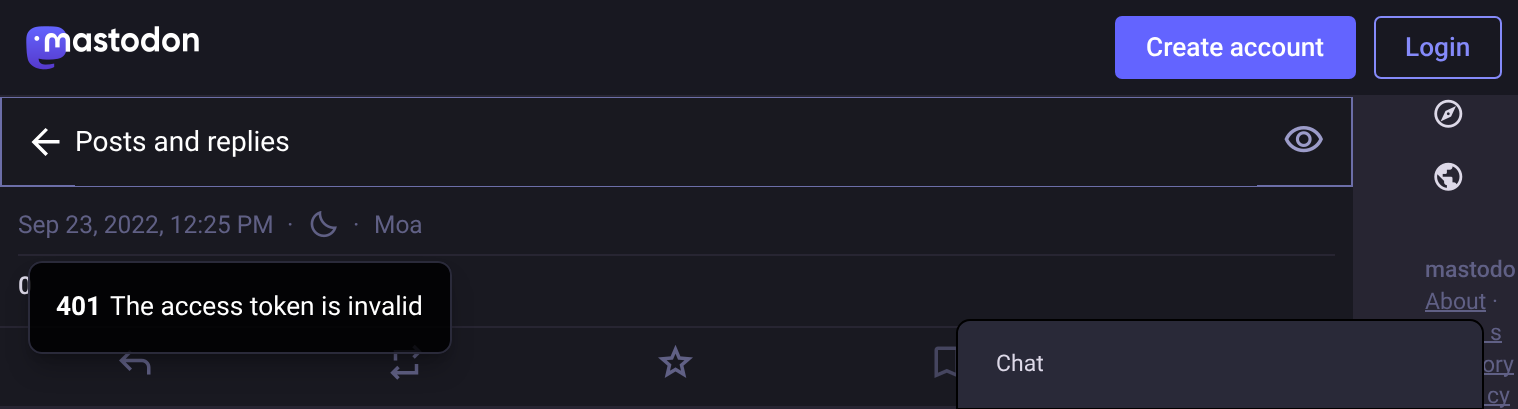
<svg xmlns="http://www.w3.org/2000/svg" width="1518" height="409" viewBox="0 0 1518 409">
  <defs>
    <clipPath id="clip1"><path d="M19 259H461V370H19ZM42 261H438C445.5 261 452 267.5 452 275V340C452 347.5 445.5 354 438 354H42C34.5 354 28 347.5 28 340V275C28 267.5 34.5 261 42 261Z" clip-rule="evenodd"/></clipPath>
    <clipPath id="clip2"><path d="M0 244H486V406H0ZM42 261H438C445.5 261 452 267.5 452 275V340C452 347.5 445.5 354 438 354H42C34.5 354 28 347.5 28 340V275C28 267.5 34.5 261 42 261Z" clip-rule="evenodd"/></clipPath>
  </defs>
  <rect width="100%" height="100%" fill="rgb(39,37,50)"/>
  <rect x="0" y="0" width="1518" height="95" fill="rgb(24,24,33)"/>
  <rect x="1" y="97" width="1351" height="89" fill="rgb(25,25,32)" stroke="rgb(108,110,168)" stroke-width="2"/>
  <rect x="0" y="96" width="1353" height="1" fill="rgb(39,37,50)"/>
  <image x="26" y="26" width="173" height="44" href="pic1.png"/>
  <rect x="1115" y="16" width="241" height="63" rx="7" fill="rgb(99,100,255)"/>
  <text x="1146" y="56" font-family="Roboto" font-size="26.25" font-weight="500" fill="rgb(255,255,255)">Create account</text>
  <rect x="1375" y="17" width="126" height="61" rx="6" fill="none" stroke="rgb(133,138,250)" stroke-width="2"/>
  <text x="1405" y="56" font-family="Roboto" font-size="26.25" font-weight="500" fill="rgb(133,138,250)">Login</text>
  <rect x="0" y="187" width="1353" height="219" fill="rgb(25,25,33)"/>
  <path d="M38 143.5L48 153.5L45.5 156L31.5 142L45.5 128L48 130L38 140H59.5V143.5Z" fill="rgb(255,255,255)"/>
  <rect x="75" y="185" width="1182" height="1" fill="rgb(25,25,33)"/>
  <text x="75" y="151" font-family="Roboto" font-size="28" fill="rgb(255,255,255)">Posts and replies</text>
  <image x="1284" y="126" width="39" height="27" href="pic2.png"/>
  <rect x="18" y="254" width="1317" height="2" fill="rgb(39,37,50)"/>
  <g font-family="Roboto" font-size="24.5" fill="rgb(96,96,133)">
    <text x="18" y="233">Sep 23, 2022, 12:25 PM</text>
    <text x="287" y="233">·</text>
  </g>
  <image x="310" y="211" width="27" height="27" href="pic3.png"/>
  <g font-family="Roboto" font-size="24.5" fill="rgb(96,96,133)">
    <text x="353" y="233">·</text>
    <text x="374" y="233">Moa</text>
  </g>
  <text x="18" y="294" font-family="Roboto" font-size="24.5" font-weight="500" fill="rgb(221,217,232)">0</text>
  <rect x="0" y="326" width="958" height="2" fill="rgb(39,37,50)"/>
  <image x="119" y="350" width="32" height="25" href="pic4.png"/>
  <image x="390" y="344" width="32" height="36" href="pic5.png"/>
  <image x="658" y="345" width="35" height="33" href="pic6.png"/>
  <image x="934" y="346" width="22" height="32" href="pic7.png"/>
  <rect x="1484" y="373" width="30" height="2" fill="rgb(96,96,133)"/>
  <text x="1482" y="372" font-family="Roboto" font-size="23" fill="rgb(96,96,133)">ory</text>
  <path d="M970 320H1470C1477 320 1483 326 1483 333V409H957V333C957 326 963 320 970 320Z" fill="rgb(41,41,56)" stroke="rgb(0,0,0)" stroke-width="2"/>
  <text x="996" y="371" font-family="Roboto" font-size="23" fill="rgb(221,217,232)">Chat</text>
  <image x="1434" y="99" width="29" height="29" href="pic8.png"/>
  <image x="1434" y="162" width="29" height="29" href="pic9.png"/>
  <text x="1425" y="277" font-family="Roboto" font-size="23" font-weight="500" fill="rgb(96,96,133)">mastodo</text>
  <text x="1425" y="309" font-family="Roboto" font-size="23" fill="rgb(96,96,133)">About ·</text>
  <rect x="1425" y="310" width="61" height="2" fill="rgb(96,96,133)"/>
  <text x="1490" y="340" font-family="Roboto" font-size="23" fill="rgb(96,96,133)">s</text>
  <rect x="1484" y="341" width="18" height="2" fill="rgb(96,96,133)"/>
  <rect x="1484" y="404" width="26" height="2" fill="rgb(96,96,133)"/>
  <text x="1487" y="403" font-family="Roboto" font-size="23" fill="rgb(96,96,133)">cy</text>
  <g clip-path="url(#clip1)">
    <rect x="35" y="275" width="410" height="79" rx="7" fill="rgba(0,0,0,0.25)" filter="blur(5px)"/>
  </g>
  <g clip-path="url(#clip2)">
    <rect x="33" y="284" width="413" height="82" rx="9" fill="rgba(0,0,0,0.25)" filter="blur(13px)"/>
  </g>
  <rect x="28" y="261" width="424" height="93" rx="14" fill="rgba(0,0,0,0.85)"/>
  <rect x="29" y="262" width="422" height="91" rx="13" fill="none" stroke="rgba(49,49,68,0.85)" stroke-width="2"/>
  <text x="56" y="315" font-family="Roboto" font-size="26.25" font-weight="bold" fill="rgb(255,255,255)">401</text>
  <text x="110" y="315" font-family="Roboto" font-size="26.25" fill="rgb(255,255,255)">The access token is invalid</text>
</svg>
